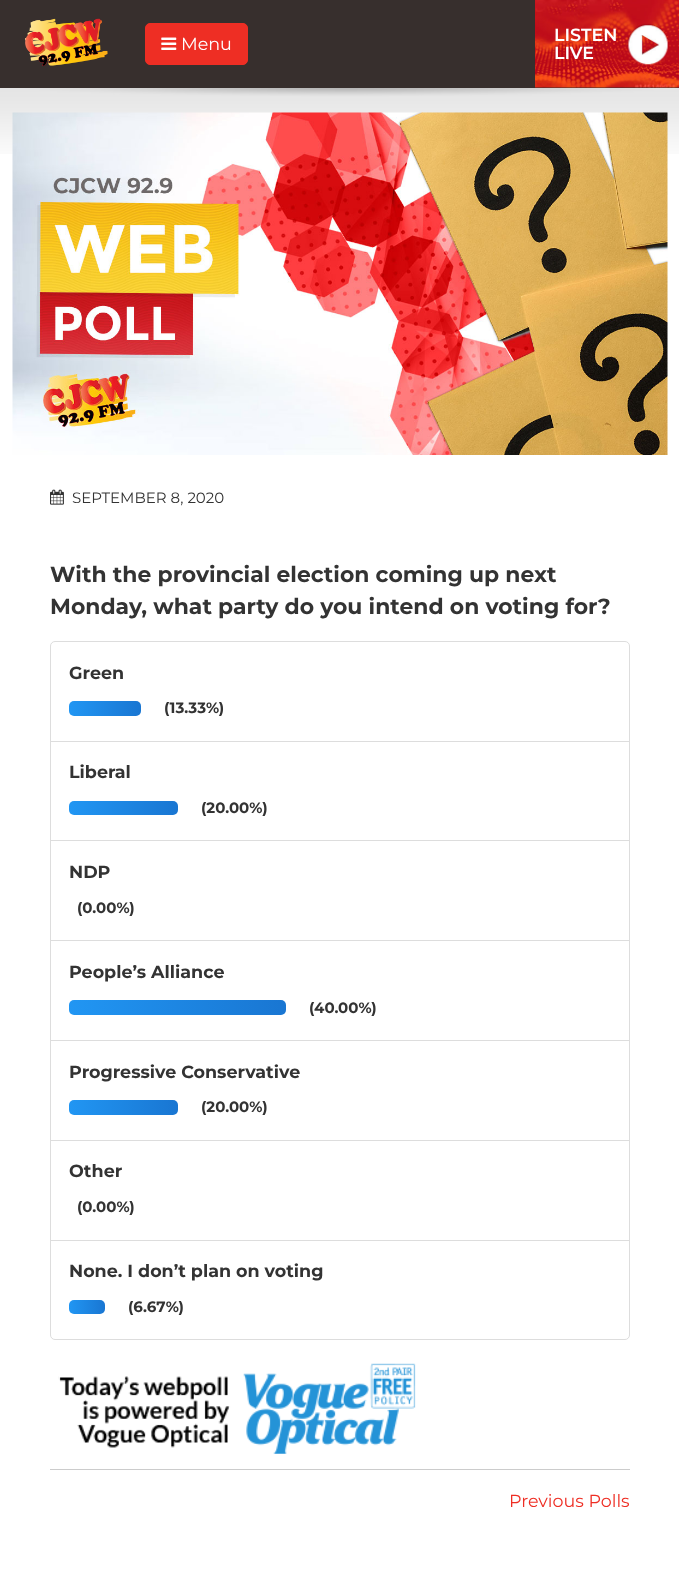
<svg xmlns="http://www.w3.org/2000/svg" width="679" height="1572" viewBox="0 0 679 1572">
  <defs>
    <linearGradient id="g1" gradientUnits="userSpaceOnUse" x1="69" y1="709" x2="141" y2="709"><stop offset="0" stop-color="rgb(33,150,243)"/><stop offset="1" stop-color="rgb(25,118,210)"/></linearGradient>
    <linearGradient id="g2" gradientUnits="userSpaceOnUse" x1="69" y1="808" x2="178" y2="808"><stop offset="0" stop-color="rgb(33,150,243)"/><stop offset="1" stop-color="rgb(25,118,210)"/></linearGradient>
    <linearGradient id="g3" gradientUnits="userSpaceOnUse" x1="69" y1="1008" x2="286" y2="1008"><stop offset="0" stop-color="rgb(33,150,243)"/><stop offset="1" stop-color="rgb(25,118,210)"/></linearGradient>
    <linearGradient id="g4" gradientUnits="userSpaceOnUse" x1="69" y1="1108" x2="178" y2="1108"><stop offset="0" stop-color="rgb(33,150,243)"/><stop offset="1" stop-color="rgb(25,118,210)"/></linearGradient>
    <linearGradient id="g5" gradientUnits="userSpaceOnUse" x1="69" y1="1307" x2="105" y2="1307"><stop offset="0" stop-color="rgb(33,150,243)"/><stop offset="1" stop-color="rgb(25,118,210)"/></linearGradient>
  </defs>
  <rect width="100%" height="100%" fill="rgb(255,255,255)"/>
  <rect x="0" y="0" width="535" height="88" fill="rgb(55,47,45)"/>
  <image x="25" y="18" width="83" height="48" href="pic1.png"/>
  <rect x="145.5" y="23.5" width="102" height="41" rx="4.5" fill="rgb(238,46,36)" stroke="rgb(238,46,36)"/>
  <image x="161" y="37" width="16" height="13" href="pic2.png"/>
  <text x="181" y="50" font-family="Montserrat" font-size="17.5" fill="rgb(255,255,255)">Menu</text>
  <rect x="535" y="87" width="144" height="1" fill="rgb(51,51,51)"/>
  <image x="535" y="0" width="144" height="88" href="pic3.png"/>
  <g font-family="Montserrat" font-size="17.5" font-weight="600" fill="rgb(255,255,255)">
    <text>
      <tspan x="554" y="41">LISTEN</tspan>
      <tspan x="554" y="59">LIVE</tspan>
    </text>
  </g>
  <image x="0" y="88" width="679" height="66" href="pic4.png"/>
  <image x="12" y="112" width="656" height="343" href="pic5.png"/>
  <image x="50" y="489" width="14" height="16" href="pic6.png"/>
  <text x="72" y="503" font-family="Montserrat" font-size="15" fill="rgb(51,51,51)">SEPTEMBER 8, 2020</text>
  <g font-family="Montserrat" font-size="21.9" font-weight="bold" fill="rgb(51,51,51)">
    <text>
      <tspan x="50" y="582">With the provincial election coming up next</tspan>
      <tspan x="50" y="614">Monday, what party do you intend on voting for?</tspan>
    </text>
  </g>
  <rect x="50.5" y="641.5" width="579" height="698" rx="4.5" fill="none" stroke="rgb(221,221,221)"/>
  <text x="69" y="679" font-family="Montserrat" font-size="17.5" font-weight="bold" fill="rgb(51,51,51)">Green</text>
  <rect x="69" y="701" width="72" height="15" rx="5" fill="url(#g1)"/>
  <text x="164" y="713" font-family="Montserrat" font-size="15" font-weight="bold" fill="rgb(51,51,51)">(13.33%)</text>
  <rect x="51" y="741" width="578" height="1" fill="rgb(221,221,221)"/>
  <text x="69" y="778" font-family="Montserrat" font-size="17.5" font-weight="bold" fill="rgb(51,51,51)">Liberal</text>
  <rect x="69" y="801" width="109" height="14" rx="5" fill="url(#g2)"/>
  <text x="201" y="813" font-family="Montserrat" font-size="15" font-weight="bold" fill="rgb(51,51,51)">(20.00%)</text>
  <rect x="51" y="840" width="578" height="1" fill="rgb(221,221,221)"/>
  <text x="69" y="878" font-family="Montserrat" font-size="17.5" font-weight="bold" fill="rgb(51,51,51)">NDP</text>
  <text x="77" y="913" font-family="Montserrat" font-size="15" font-weight="bold" fill="rgb(51,51,51)">(0.00%)</text>
  <rect x="51" y="940" width="578" height="1" fill="rgb(221,221,221)"/>
  <text x="69" y="978" font-family="Montserrat" font-size="17.5" font-weight="bold" fill="rgb(51,51,51)">People’s Alliance</text>
  <rect x="69" y="1000" width="217" height="15" rx="5" fill="url(#g3)"/>
  <text x="309" y="1013" font-family="Montserrat" font-size="15" font-weight="bold" fill="rgb(51,51,51)">(40.00%)</text>
  <rect x="51" y="1040" width="578" height="1" fill="rgb(221,221,221)"/>
  <text x="69" y="1078" font-family="Montserrat" font-size="17.5" font-weight="bold" fill="rgb(51,51,51)">Progressive Conservative</text>
  <rect x="69" y="1100" width="109" height="15" rx="5" fill="url(#g4)"/>
  <text x="201" y="1112" font-family="Montserrat" font-size="15" font-weight="bold" fill="rgb(51,51,51)">(20.00%)</text>
  <rect x="51" y="1140" width="578" height="1" fill="rgb(221,221,221)"/>
  <text x="69" y="1177" font-family="Montserrat" font-size="17.5" font-weight="bold" fill="rgb(51,51,51)">Other</text>
  <text x="77" y="1212" font-family="Montserrat" font-size="15" font-weight="bold" fill="rgb(51,51,51)">(0.00%)</text>
  <rect x="51" y="1240" width="578" height="1" fill="rgb(221,221,221)"/>
  <text x="69" y="1277" font-family="Montserrat" font-size="17.5" font-weight="bold" fill="rgb(51,51,51)">None. I don’t plan on voting</text>
  <rect x="69" y="1300" width="36" height="14" rx="5" fill="url(#g5)"/>
  <text x="128" y="1312" font-family="Montserrat" font-size="15" font-weight="bold" fill="rgb(51,51,51)">(6.67%)</text>
  <image x="58" y="1363" width="358" height="91" href="pic7.png"/>
  <rect x="50" y="1469" width="580" height="1" fill="rgb(204,204,204)"/>
  <text x="509" y="1507" font-family="Montserrat" font-size="17.5" fill="rgb(238,46,36)">Previous Polls</text>
</svg>
